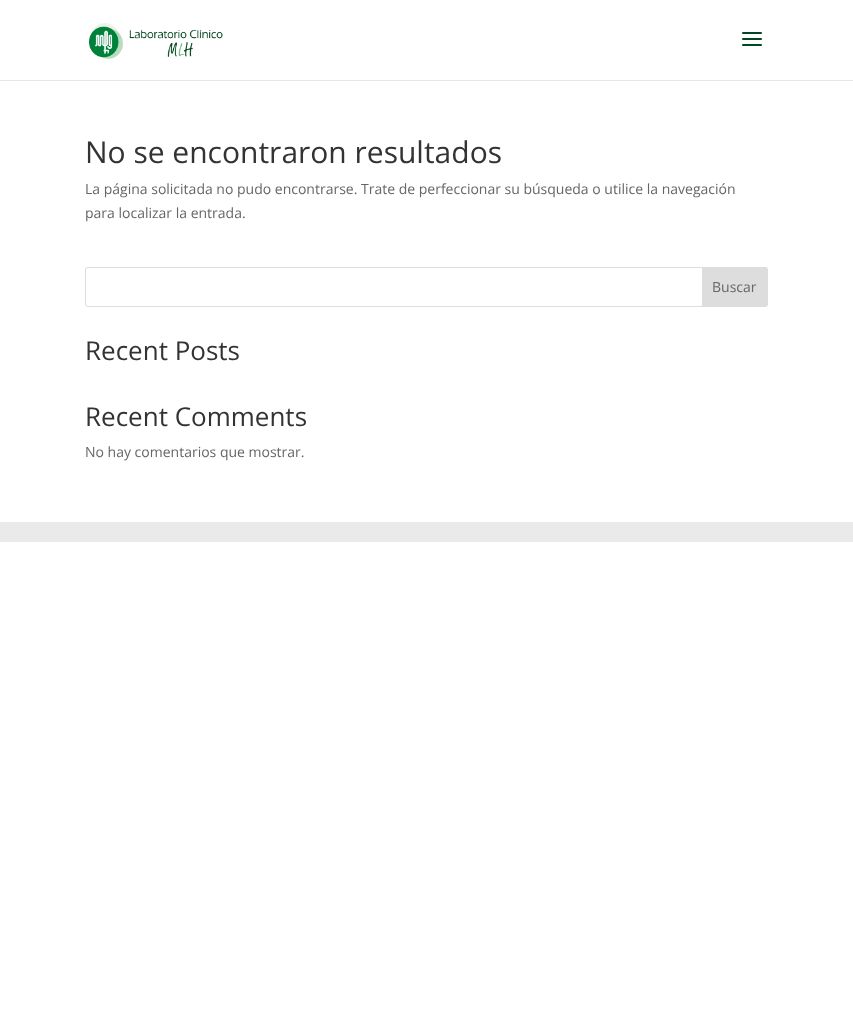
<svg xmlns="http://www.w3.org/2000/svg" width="853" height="1034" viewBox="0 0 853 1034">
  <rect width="100%" height="100%" fill="rgb(255,255,255)"/>
  <rect x="0" y="80" width="853" height="1" fill="rgb(230,230,230)"/>
  <image x="89" y="23" width="134" height="36" href="pic1.png"/>
  <image x="742" y="32" width="20" height="14" href="pic2.png"/>
  <text x="85" y="163" font-family="Open Sans" font-size="30" fill="rgb(51,51,51)">No se encontraron resultados</text>
  <g font-family="Open Sans" font-size="14" fill="rgb(102,102,102)">
    <text>
      <tspan x="85" y="194">La página solicitada no pudo encontrarse. Trate de perfeccionar su búsqueda o utilice la navegación</tspan>
      <tspan x="85" y="218">para localizar la entrada.</tspan>
    </text>
  </g>
  <rect x="85.5" y="267.5" width="682" height="39" rx="2.5" fill="none" stroke="rgb(221,221,221)"/>
  <path d="M702.5 267.5H765C766.5 267.5 767.5 268.5 767.5 270V304C767.5 305.5 766.5 306.5 765 306.5H702.5Z" fill="rgb(221,221,221)" stroke="rgb(221,221,221)"/>
  <text x="712" y="292" font-family="Open Sans" font-size="14" fill="rgb(102,102,102)">Buscar</text>
  <g font-family="Open Sans" font-size="26" fill="rgb(51,51,51)">
    <text x="85" y="360">Recent Posts</text>
    <text x="85" y="426">Recent Comments</text>
  </g>
  <text x="85" y="457" font-family="Open Sans" font-size="14" fill="rgb(102,102,102)">No hay comentarios que mostrar.</text>
  <rect x="0" y="522" width="853" height="20" fill="rgb(234,234,234)"/>
</svg>
